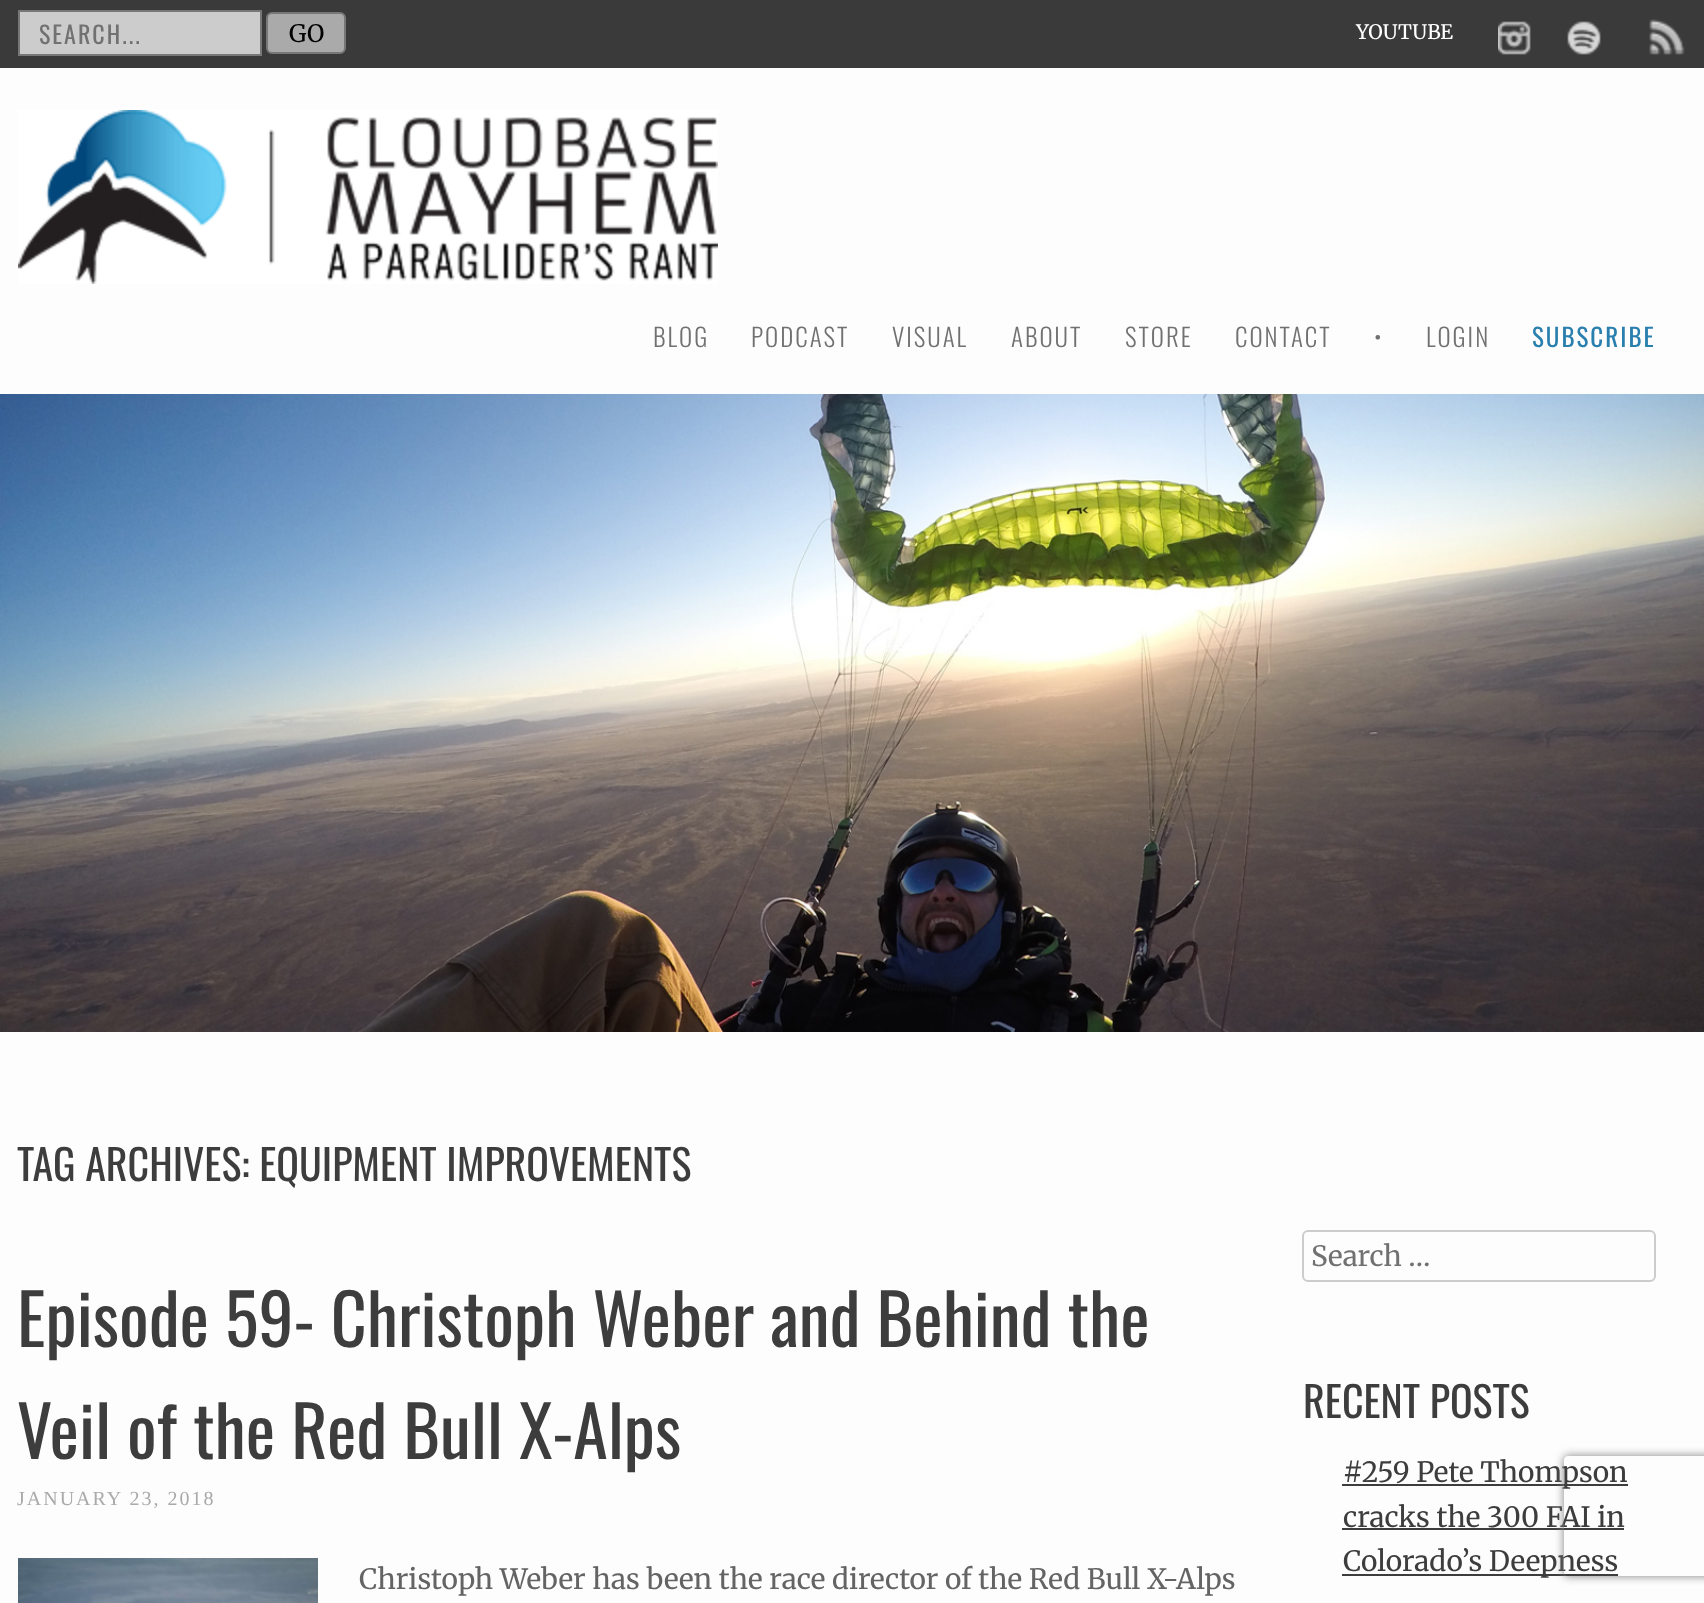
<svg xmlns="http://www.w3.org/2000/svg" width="1704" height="1603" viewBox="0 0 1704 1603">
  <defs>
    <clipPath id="clip1"><path d="M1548 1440H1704V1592H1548ZM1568 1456H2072C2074 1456 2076 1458 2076 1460V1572C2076 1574 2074 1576 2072 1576H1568C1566 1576 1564 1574 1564 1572V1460C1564 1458 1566 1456 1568 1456Z" clip-rule="evenodd"/></clipPath>
  </defs>
  <rect width="100%" height="100%" fill="rgb(253,253,253)"/>
  <rect x="0" y="0" width="1704" height="68" fill="rgb(58,58,58)"/>
  <rect x="19" y="11" width="242" height="44" fill="rgb(204,204,204)" stroke="rgb(119,119,119)" stroke-width="2"/>
  <text x="39" y="44" font-family="Oswald" font-size="24" letter-spacing="2" fill="rgb(113,113,113)">SEARCH...</text>
  <rect x="267" y="13" width="78" height="40" rx="5" fill="rgb(170,170,170)" stroke="rgb(119,119,119)" stroke-width="2"/>
  <text x="289" y="42" font-family="Merriweather" font-size="24" fill="rgb(0,0,0)">GO</text>
  <text x="1356" y="39" font-family="Merriweather" font-size="20" fill="rgb(255,255,255)">YOUTUBE</text>
  <image x="1498" y="21" width="33" height="34" href="pic1.png"/>
  <image x="1567" y="21" width="34" height="34" href="pic2.png"/>
  <image x="1649" y="19" width="36" height="36" href="pic3.png"/>
  <image x="18" y="110" width="700" height="174" href="pic4.png"/>
  <g font-family="Oswald" font-size="25" font-weight="300" letter-spacing="2" fill="rgb(113,113,113)">
    <text x="653" y="347">BLOG</text>
    <text x="751" y="347">PODCAST</text>
    <text x="892" y="347">VISUAL</text>
    <text x="1011" y="347">ABOUT</text>
    <text x="1125" y="347">STORE</text>
    <text x="1235" y="347">CONTACT</text>
    <text x="1374" y="347">•</text>
    <text x="1426" y="347">LOGIN</text>
  </g>
  <text x="1532" y="347" font-family="Oswald" font-size="25" letter-spacing="2" fill="rgb(41,127,173)">SUBSCRIBE</text>
  <image x="0" y="394" width="1704" height="638" href="pic5.png"/>
  <text x="17" y="1181" font-family="Oswald" font-size="42" fill="rgb(61,61,61)">TAG ARCHIVES: EQUIPMENT IMPROVEMENTS</text>
  <g font-family="Oswald" font-size="70" fill="rgb(61,61,61)">
    <text>
      <tspan x="17" y="1347">Episode 59- Christoph Weber and Behind the</tspan>
      <tspan x="17" y="1459">Veil of the Red Bull X-Alps</tspan>
    </text>
  </g>
  <text x="17" y="1505" font-family="Liberation Serif" font-size="20" letter-spacing="2" fill="rgb(170,170,170)">JANUARY 23, 2018</text>
  <image x="18" y="1558" width="300" height="45" href="pic6.png"/>
  <text x="359" y="1589" font-family="Merriweather" font-size="28" fill="rgb(101,100,100)">Christoph Weber has been the race director of the Red Bull X-Alps</text>
  <rect x="1303" y="1231" width="352" height="50" rx="5" fill="none" stroke="rgb(204,204,204)" stroke-width="2"/>
  <text x="1311" y="1266" font-family="Merriweather" font-size="28" fill="rgb(113,113,113)">Search …</text>
  <text x="1303" y="1418" font-family="Oswald" font-size="42" fill="rgb(61,61,61)">RECENT POSTS</text>
  <rect x="1342" y="1484" width="286" height="2" fill="rgb(61,61,61)"/>
  <g font-family="Merriweather" font-size="28" fill="rgb(61,61,61)">
    <text>
      <tspan x="1343" y="1482">#259 Pete Thompson</tspan>
      <tspan x="1343" y="1527">cracks the 300 FAI in</tspan>
    </text>
  </g>
  <rect x="1342" y="1528" width="282" height="2" fill="rgb(61,61,61)"/>
  <rect x="1342" y="1574" width="276" height="2" fill="rgb(61,61,61)"/>
  <text x="1343" y="1571" font-family="Merriweather" font-size="28" fill="rgb(61,61,61)">Colorado’s Deepness</text>
  <g clip-path="url(#clip1)">
    <rect x="1564" y="1456" width="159" height="120" rx="4" fill="rgb(128,128,128)" filter="blur(5px)"/>
  </g>
</svg>
